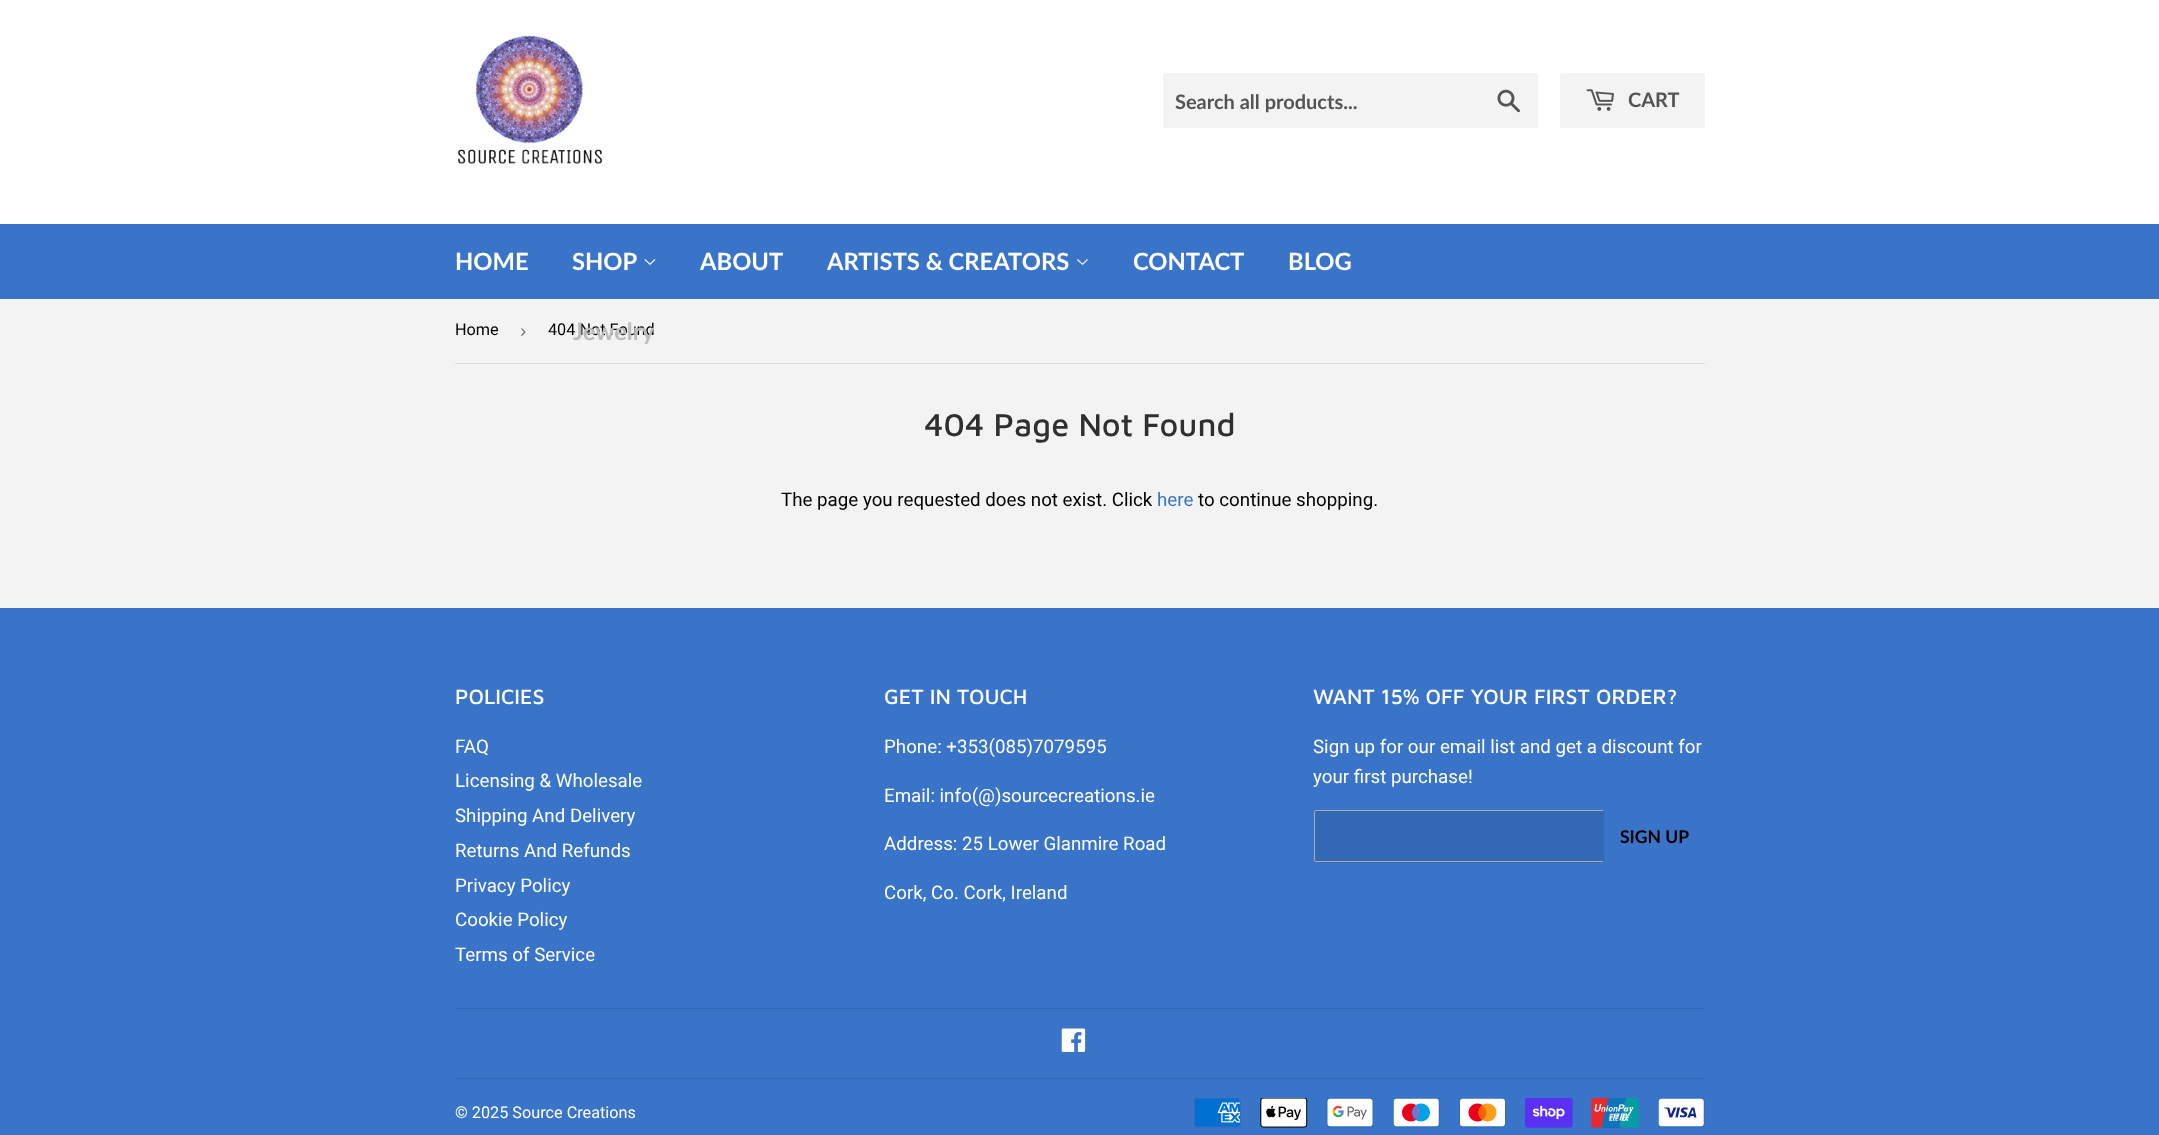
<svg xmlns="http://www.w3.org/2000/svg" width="2159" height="1135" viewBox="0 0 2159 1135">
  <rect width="100%" height="100%" fill="rgb(243,243,243)"/>
  <rect x="0" y="0" width="2159" height="224" fill="rgb(255,255,255)"/>
  <image x="457" y="35" width="146" height="130" href="pic1.png"/>
  <rect x="1163" y="73" width="375" height="55" rx="2.5" fill="rgb(243,243,243)"/>
  <text x="1175" y="109" font-family="Lato" font-size="20" font-weight="bold" fill="rgb(84,84,84)">Search all products...</text>
  <image x="1497" y="89" width="23" height="24" href="pic2.png"/>
  <rect x="1560" y="73" width="145" height="55" rx="2.5" fill="rgb(243,243,243)"/>
  <image x="1586" y="89" width="28" height="22" href="pic3.png"/>
  <text x="1628" y="107" font-family="Lato" font-size="20" font-weight="bold" fill="rgb(84,84,84)">CART</text>
  <rect x="0" y="224" width="2159" height="75" fill="rgb(57,116,200)"/>
  <g font-family="Lato" font-size="23.75" font-weight="bold" fill="rgb(255,255,255)">
    <text x="455" y="270">HOME</text>
    <text x="572" y="270">SHOP</text>
  </g>
  <image x="644" y="259" width="12" height="6" href="pic4.png"/>
  <text x="548" y="335" font-family="Roboto" font-size="16.25" fill="rgb(0,0,0)">404 Not Found</text>
  <text x="573" y="340" font-family="Lato" font-size="23.75" font-weight="bold" fill="rgb(188,188,188)">Jewelry</text>
  <g font-family="Lato" font-size="23.75" font-weight="bold" fill="rgb(255,255,255)">
    <text x="700" y="270">ABOUT</text>
    <text x="827" y="270">ARTISTS &amp; CREATORS</text>
  </g>
  <image x="1077" y="259" width="11" height="6" href="pic5.png"/>
  <g font-family="Lato" font-size="23.75" font-weight="bold" fill="rgb(255,255,255)">
    <text x="1133" y="270">CONTACT</text>
    <text x="1288" y="270">BLOG</text>
  </g>
  <rect x="455" y="363" width="1250" height="1" fill="rgb(222,222,222)"/>
  <text x="455" y="335" font-family="Roboto" font-size="16.25" fill="rgb(0,0,0)">Home</text>
  <text x="520" y="337" font-family="Liberation Sans" font-size="18.75" fill="rgb(118,118,118)">›</text>
  <text x="924" y="436" font-family="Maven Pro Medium" font-size="32.5" font-weight="500" fill="rgb(47,47,47)">404 Page Not Found</text>
  <text x="781" y="506" font-family="Roboto" font-size="18.75" fill="rgb(0,0,0)">The page you requested does not exist. Click</text>
  <text x="1157" y="506" font-family="Roboto" font-size="18.75" fill="rgb(57,116,200)">here</text>
  <text x="1198" y="506" font-family="Roboto" font-size="18.75" fill="rgb(0,0,0)">to continue shopping.</text>
  <rect x="0" y="608" width="2159" height="527" fill="rgb(57,116,200)"/>
  <text x="455" y="704" font-family="Maven Pro Medium" font-size="21.25" font-weight="500" fill="rgb(255,255,255)">POLICIES</text>
  <g font-family="Roboto" font-size="18.75" fill="rgb(255,255,255)">
    <text>
      <tspan x="455" y="753">FAQ</tspan>
      <tspan x="455" y="787">Licensing &amp; Wholesale</tspan>
      <tspan x="455" y="822">Shipping And Delivery</tspan>
      <tspan x="455" y="857">Returns And Refunds</tspan>
      <tspan x="455" y="892">Privacy Policy</tspan>
      <tspan x="455" y="926">Cookie Policy</tspan>
      <tspan x="455" y="961">Terms of Service</tspan>
    </text>
  </g>
  <text x="884" y="704" font-family="Maven Pro Medium" font-size="21.25" font-weight="500" fill="rgb(255,255,255)">GET IN TOUCH</text>
  <g font-family="Roboto" font-size="18.75" fill="rgb(255,255,255)">
    <text x="884" y="753">Phone: +353(085)7079595</text>
    <text x="884" y="802">Email: info(@)sourcecreations.ie</text>
    <text x="884" y="850">Address: 25 Lower Glanmire Road</text>
    <text x="884" y="899">Cork, Co. Cork, Ireland</text>
  </g>
  <text x="1313" y="704" font-family="Maven Pro Medium" font-size="21.25" font-weight="500" fill="rgb(255,255,255)">WANT 15% OFF YOUR FIRST ORDER?</text>
  <g font-family="Roboto" font-size="18.75" fill="rgb(255,255,255)">
    <text>
      <tspan x="1313" y="753">Sign up for our email list and get a discount for</tspan>
      <tspan x="1313" y="783">your first purchase!</tspan>
    </text>
  </g>
  <rect x="1314" y="810" width="290" height="53" rx="2.5" fill="rgb(51,104,180)"/>
  <rect x="1315" y="810" width="288" height="1" fill="rgb(171,171,171)"/>
  <rect x="1315" y="861" width="288" height="1" fill="rgb(171,171,171)"/>
  <rect x="1314" y="811" width="1" height="50" fill="rgb(171,171,171)"/>
  <text x="1620" y="843" font-family="Lato" font-size="17.5" font-weight="bold" fill="rgb(0,0,0)">SIGN UP</text>
  <rect x="455" y="1008" width="1250" height="1" fill="rgb(50,104,181)"/>
  <image x="1061" y="1028" width="25" height="24" href="pic6.png"/>
  <rect x="455" y="1078" width="1250" height="1" fill="rgb(50,104,181)"/>
  <text x="455" y="1118" font-family="Roboto" font-size="16.25" fill="rgb(255,255,255)">© 2025 Source Creations</text>
  <image x="1194" y="1098" width="47" height="30" href="pic7.png"/>
  <image x="1260" y="1098" width="48" height="30" href="pic8.png"/>
  <image x="1326" y="1098" width="48" height="30" href="pic9.png"/>
  <image x="1393" y="1098" width="47" height="30" href="pic10.png"/>
  <image x="1459" y="1098" width="47" height="30" href="pic11.png"/>
  <image x="1525" y="1098" width="48" height="30" href="pic12.png"/>
  <image x="1591" y="1098" width="48" height="30" href="pic13.png"/>
  <image x="1658" y="1098" width="47" height="30" href="pic14.png"/>
</svg>
